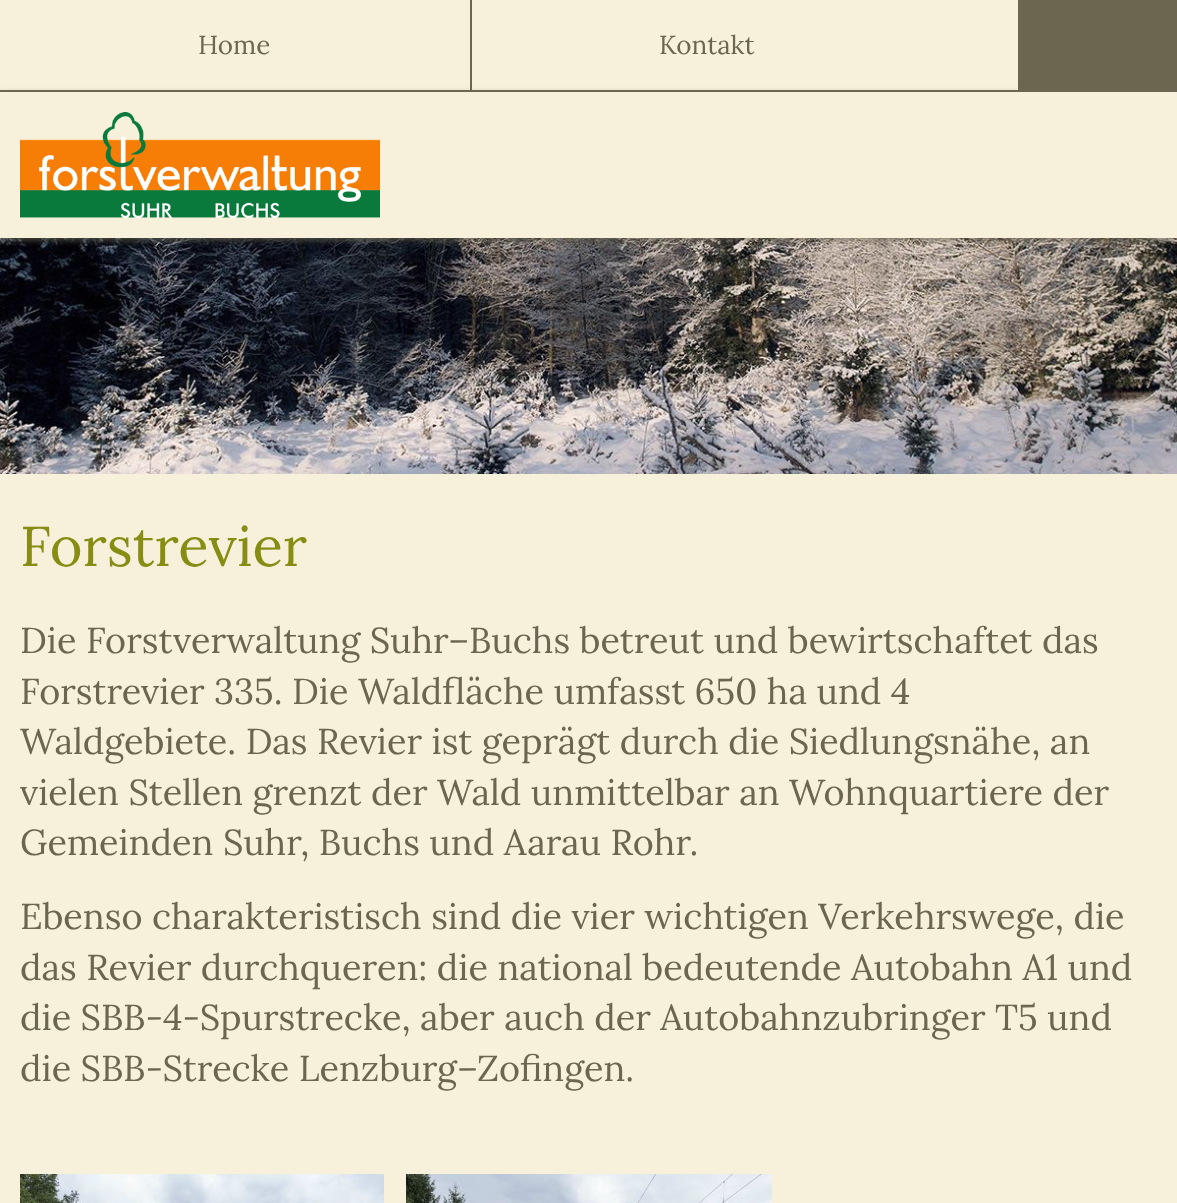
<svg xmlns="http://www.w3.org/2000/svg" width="1177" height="1203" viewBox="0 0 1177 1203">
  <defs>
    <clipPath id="clip1"><path d="M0 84H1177V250H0ZM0 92H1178V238H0Z" clip-rule="evenodd"/></clipPath>
  </defs>
  <rect width="100%" height="100%" fill="rgb(247,240,219)"/>
  <rect x="0" y="90" width="1177" height="2" fill="rgb(108,102,81)"/>
  <rect x="470" y="0" width="2" height="90" fill="rgb(108,102,81)"/>
  <g font-family="Lora" font-size="26" fill="rgb(108,102,81)">
    <text x="198" y="54">Home</text>
    <text x="659" y="54">Kontakt</text>
  </g>
  <rect x="1018" y="0" width="159" height="90" fill="rgb(108,102,81)"/>
  <image x="0" y="238" width="1177" height="236" href="pic2.png"/>
  <g clip-path="url(#clip1)">
    <rect x="0" y="94" width="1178" height="146" fill="rgba(107,101,80,0.75)" filter="blur(3px)"/>
  </g>
  <image x="20" y="112" width="360" height="106" href="pic1.png"/>
  <text x="20" y="566" font-family="Lora" font-size="56" fill="rgb(134,141,18)">Forstrevier</text>
  <g font-family="Lora" font-size="36" fill="rgb(108,102,81)">
    <text>
      <tspan x="20" y="653">Die Forstverwaltung Suhr–Buchs betreut und bewirtschaftet das</tspan>
      <tspan x="20" y="704">Forstrevier 335. Die Waldfläche umfasst 650 ha und 4</tspan>
      <tspan x="20" y="754">Waldgebiete. Das Revier ist geprägt durch die Siedlungsnähe, an</tspan>
      <tspan x="20" y="805">vielen Stellen grenzt der Wald unmittelbar an Wohnquartiere der</tspan>
      <tspan x="20" y="855">Gemeinden Suhr, Buchs und Aarau Rohr.</tspan>
    </text>
    <text>
      <tspan x="20" y="929">Ebenso charakteristisch sind die vier wichtigen Verkehrswege, die</tspan>
      <tspan x="20" y="980">das Revier durchqueren: die national bedeutende Autobahn A1 und</tspan>
      <tspan x="20" y="1030">die SBB-4-Spurstrecke, aber auch der Autobahnzubringer T5 und</tspan>
      <tspan x="20" y="1081">die SBB-Strecke Lenzburg–Zofingen.</tspan>
    </text>
  </g>
  <image x="20" y="1174" width="364" height="29" href="pic3.png"/>
  <image x="406" y="1174" width="366" height="29" href="pic4.png"/>
</svg>
